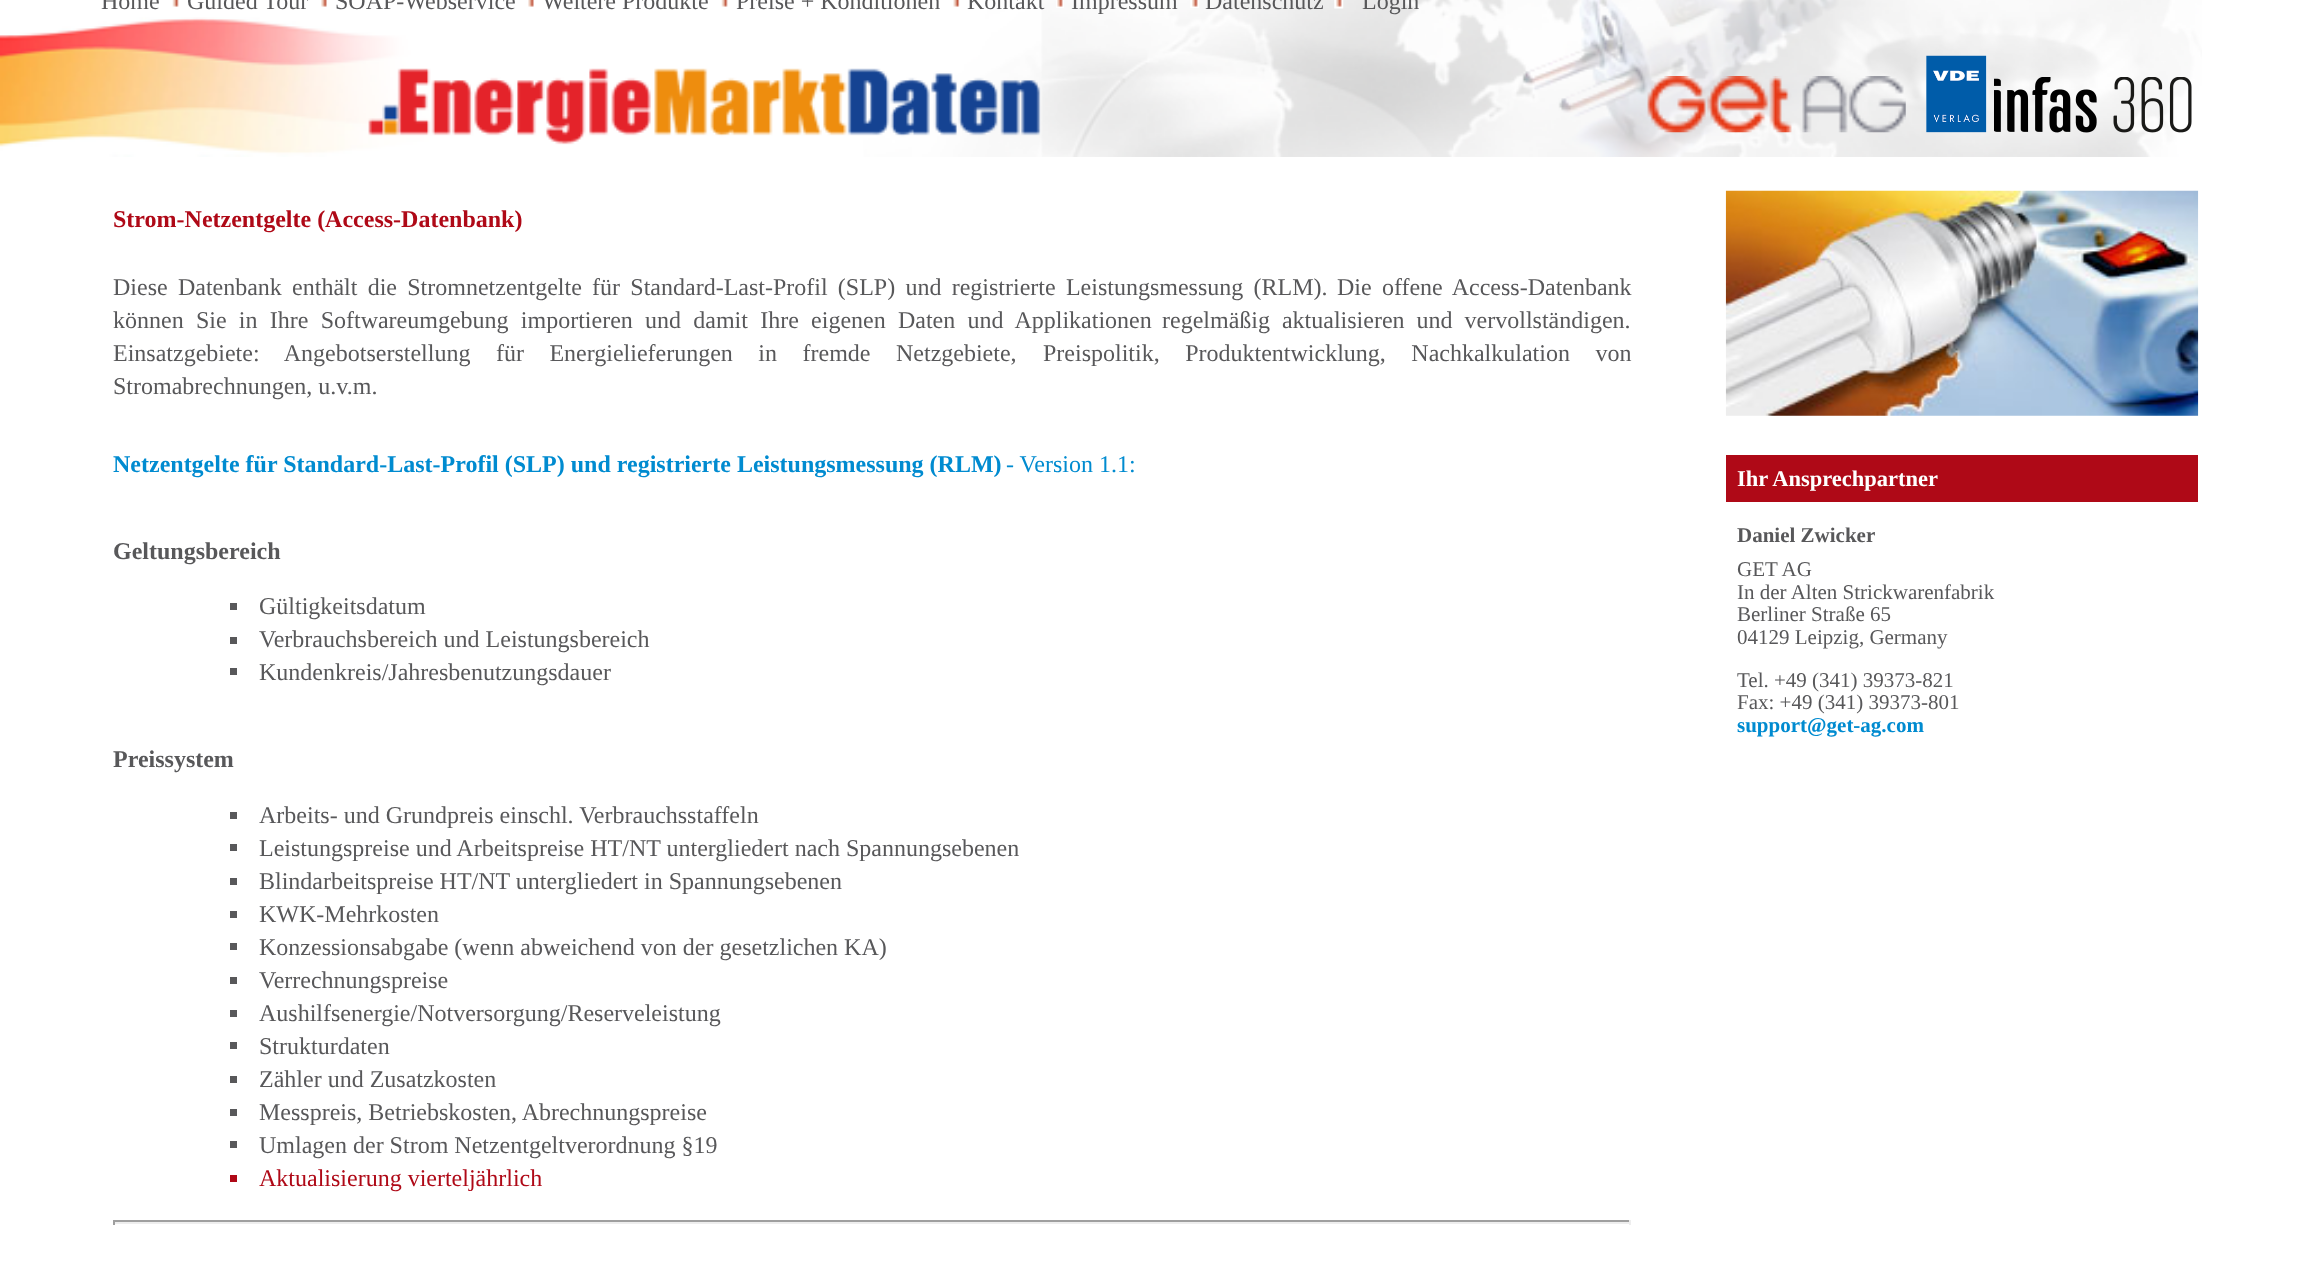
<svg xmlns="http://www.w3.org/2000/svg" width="2312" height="1276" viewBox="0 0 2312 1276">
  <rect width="100%" height="100%" fill="rgb(255,255,255)"/>
  <image x="0" y="0" width="2202" height="157" href="pic1.png"/>
  <text x="101" y="9" font-family="Liberation Serif" font-size="24" fill="rgb(88,88,90)">Home</text>
  <image x="172" y="0" width="7" height="7" href="pic2.png"/>
  <text x="187" y="9" font-family="Liberation Serif" font-size="24" fill="rgb(88,88,90)">Guided Tour</text>
  <image x="321" y="0" width="6" height="7" href="pic3.png"/>
  <text x="335" y="9" font-family="Liberation Serif" font-size="24" fill="rgb(88,88,90)">SOAP-Webservice</text>
  <image x="528" y="0" width="6" height="7" href="pic3.png"/>
  <text x="542" y="9" font-family="Liberation Serif" font-size="24" fill="rgb(88,88,90)">Weitere Produkte</text>
  <image x="721" y="0" width="7" height="7" href="pic2.png"/>
  <text x="736" y="9" font-family="Liberation Serif" font-size="24" fill="rgb(88,88,90)">Preise + Konditionen</text>
  <image x="953" y="0" width="7" height="7" href="pic4.png"/>
  <text x="967" y="9" font-family="Liberation Serif" font-size="24" fill="rgb(88,88,90)">Kontakt</text>
  <image x="1056" y="0" width="8" height="8" href="pic5.png"/>
  <text x="1071" y="9" font-family="Liberation Serif" font-size="24" fill="rgb(88,88,90)">Impressum</text>
  <image x="1190" y="0" width="9" height="8" href="pic6.png"/>
  <text x="1205" y="9" font-family="Liberation Serif" font-size="24" fill="rgb(88,88,90)">Datenschutz</text>
  <image x="1334" y="0" width="10" height="9" href="pic7.png"/>
  <text x="1362" y="9" font-family="Liberation Serif" font-size="24" fill="rgb(88,88,90)">Login</text>
  <image x="1647" y="76" width="259" height="57" href="pic8.png"/>
  <image x="1926" y="55" width="61" height="78" href="pic9.png"/>
  <image x="1994" y="77" width="198" height="56" href="pic10.png"/>
  <image x="1725" y="190" width="474" height="226" href="pic11.png"/>
  <rect x="1726" y="455" width="472" height="47" fill="rgb(175,9,23)"/>
  <text x="1737" y="486" font-family="Liberation Serif" font-size="22.5" font-weight="bold" fill="rgb(255,255,255)">Ihr Ansprechpartner</text>
  <text x="1737" y="542" font-family="Liberation Serif" font-size="21" font-weight="bold" fill="rgb(88,88,90)">Daniel Zwicker</text>
  <g font-family="Liberation Serif" font-size="21" fill="rgb(88,88,90)">
    <text>
      <tspan x="1737" y="576">GET AG</tspan>
      <tspan x="1737" y="599">In der Alten Strickwarenfabrik</tspan>
      <tspan x="1737" y="621">Berliner Straße 65</tspan>
      <tspan x="1737" y="644">04129 Leipzig, Germany</tspan>
    </text>
    <text>
      <tspan x="1737" y="687">Tel. +49 (341) 39373-821</tspan>
      <tspan x="1737" y="709">Fax: +49 (341) 39373-801</tspan>
    </text>
  </g>
  <text x="1737" y="732" font-family="Liberation Serif" font-size="21" font-weight="bold" fill="rgb(0,139,208)">support@get-ag.com</text>
  <text x="113" y="227" font-family="Liberation Serif" font-size="24" font-weight="bold" fill="rgb(175,9,23)">Strom-Netzentgelte (Access-Datenbank)</text>
  <g font-family="Liberation Serif" font-size="24" fill="rgb(88,88,90)">
    <text x="113" y="295" word-spacing="4.25">Diese Datenbank enthält die Stromnetzentgelte für Standard-Last-Profil (SLP) und registrierte Leistungsmessung (RLM).</text>
    <text x="1337" y="295" word-spacing="4.25">Die offene Access-Datenbank</text>
    <text x="113" y="328" word-spacing="6.25">können Sie in Ihre Softwareumgebung importieren und damit Ihre eigenen Daten und Applikationen</text>
    <text x="1162" y="328" word-spacing="6">regelmäßig aktualisieren und vervollständigen.</text>
    <text x="113" y="361" word-spacing="19.5">Einsatzgebiete: Angebotserstellung für Energielieferungen in fremde Netzgebiete,</text>
    <text x="1043" y="361" word-spacing="19.5">Preispolitik, Produktentwicklung, Nachkalkulation von</text>
    <text x="113" y="394">Stromabrechnungen, u.v.m.</text>
  </g>
  <text x="113" y="472" font-family="Liberation Serif" font-size="24" font-weight="bold" fill="rgb(0,139,208)">Netzentgelte für Standard-Last-Profil (SLP) und registrierte Leistungsmessung (RLM)</text>
  <text x="1006" y="472" font-family="Liberation Serif" font-size="24" fill="rgb(0,139,208)">- Version 1.1:</text>
  <text x="113" y="559" font-family="Liberation Serif" font-size="24" font-weight="bold" fill="rgb(88,88,90)">Geltungsbereich</text>
  <rect x="230" y="603" width="7" height="7" fill="rgb(88,88,90)"/>
  <text x="259" y="614" font-family="Liberation Serif" font-size="24" fill="rgb(88,88,90)">Gültigkeitsdatum</text>
  <rect x="230" y="637" width="7" height="7" fill="rgb(88,88,90)"/>
  <text x="259" y="647" font-family="Liberation Serif" font-size="24" fill="rgb(88,88,90)">Verbrauchsbereich und Leistungsbereich</text>
  <rect x="230" y="668" width="7" height="7" fill="rgb(88,88,90)"/>
  <text x="259" y="680" font-family="Liberation Serif" font-size="24" fill="rgb(88,88,90)">Kundenkreis/Jahresbenutzungsdauer</text>
  <text x="113" y="767" font-family="Liberation Serif" font-size="24" font-weight="bold" fill="rgb(88,88,90)">Preissystem</text>
  <rect x="230" y="812" width="7" height="7" fill="rgb(88,88,90)"/>
  <text x="259" y="823" font-family="Liberation Serif" font-size="24" fill="rgb(88,88,90)">Arbeits- und Grundpreis einschl. Verbrauchsstaffeln</text>
  <rect x="230" y="844" width="7" height="7" fill="rgb(88,88,90)"/>
  <text x="259" y="856" font-family="Liberation Serif" font-size="24" fill="rgb(88,88,90)">Leistungspreise und Arbeitspreise HT/NT untergliedert nach Spannungsebenen</text>
  <rect x="230" y="878" width="7" height="7" fill="rgb(88,88,90)"/>
  <text x="259" y="889" font-family="Liberation Serif" font-size="24" fill="rgb(88,88,90)">Blindarbeitspreise HT/NT untergliedert in Spannungsebenen</text>
  <rect x="230" y="911" width="7" height="7" fill="rgb(88,88,90)"/>
  <text x="259" y="922" font-family="Liberation Serif" font-size="24" fill="rgb(88,88,90)">KWK-Mehrkosten</text>
  <rect x="230" y="943" width="7" height="7" fill="rgb(88,88,90)"/>
  <text x="259" y="955" font-family="Liberation Serif" font-size="24" fill="rgb(88,88,90)">Konzessionsabgabe (wenn abweichend von der gesetzlichen KA)</text>
  <rect x="230" y="977" width="7" height="7" fill="rgb(88,88,90)"/>
  <text x="259" y="988" font-family="Liberation Serif" font-size="24" fill="rgb(88,88,90)">Verrechnungspreise</text>
  <rect x="230" y="1010" width="7" height="7" fill="rgb(88,88,90)"/>
  <text x="259" y="1021" font-family="Liberation Serif" font-size="24" fill="rgb(88,88,90)">Aushilfsenergie/Notversorgung/Reserveleistung</text>
  <rect x="230" y="1042" width="7" height="7" fill="rgb(88,88,90)"/>
  <text x="259" y="1054" font-family="Liberation Serif" font-size="24" fill="rgb(88,88,90)">Strukturdaten</text>
  <rect x="230" y="1076" width="7" height="7" fill="rgb(88,88,90)"/>
  <text x="259" y="1087" font-family="Liberation Serif" font-size="24" fill="rgb(88,88,90)">Zähler und Zusatzkosten</text>
  <rect x="230" y="1109" width="7" height="7" fill="rgb(88,88,90)"/>
  <text x="259" y="1120" font-family="Liberation Serif" font-size="24" fill="rgb(88,88,90)">Messpreis, Betriebskosten, Abrechnungspreise</text>
  <rect x="230" y="1141" width="7" height="7" fill="rgb(88,88,90)"/>
  <text x="259" y="1153" font-family="Liberation Serif" font-size="24" fill="rgb(88,88,90)">Umlagen der Strom Netzentgeltverordnung §19</text>
  <rect x="230" y="1175" width="7" height="7" fill="rgb(175,9,23)"/>
  <text x="259" y="1186" font-family="Liberation Serif" font-size="24" fill="rgb(175,9,23)">Aktualisierung vierteljährlich</text>
  <rect x="113" y="1220" width="1518" height="2" fill="rgb(159,159,159)"/>
  <rect x="1629" y="1220" width="2" height="5" fill="rgb(238,238,238)"/>
  <rect x="113" y="1222" width="1518" height="2" fill="rgb(238,238,238)"/>
  <rect x="113" y="1220" width="2" height="5" fill="rgb(159,159,159)"/>
</svg>
